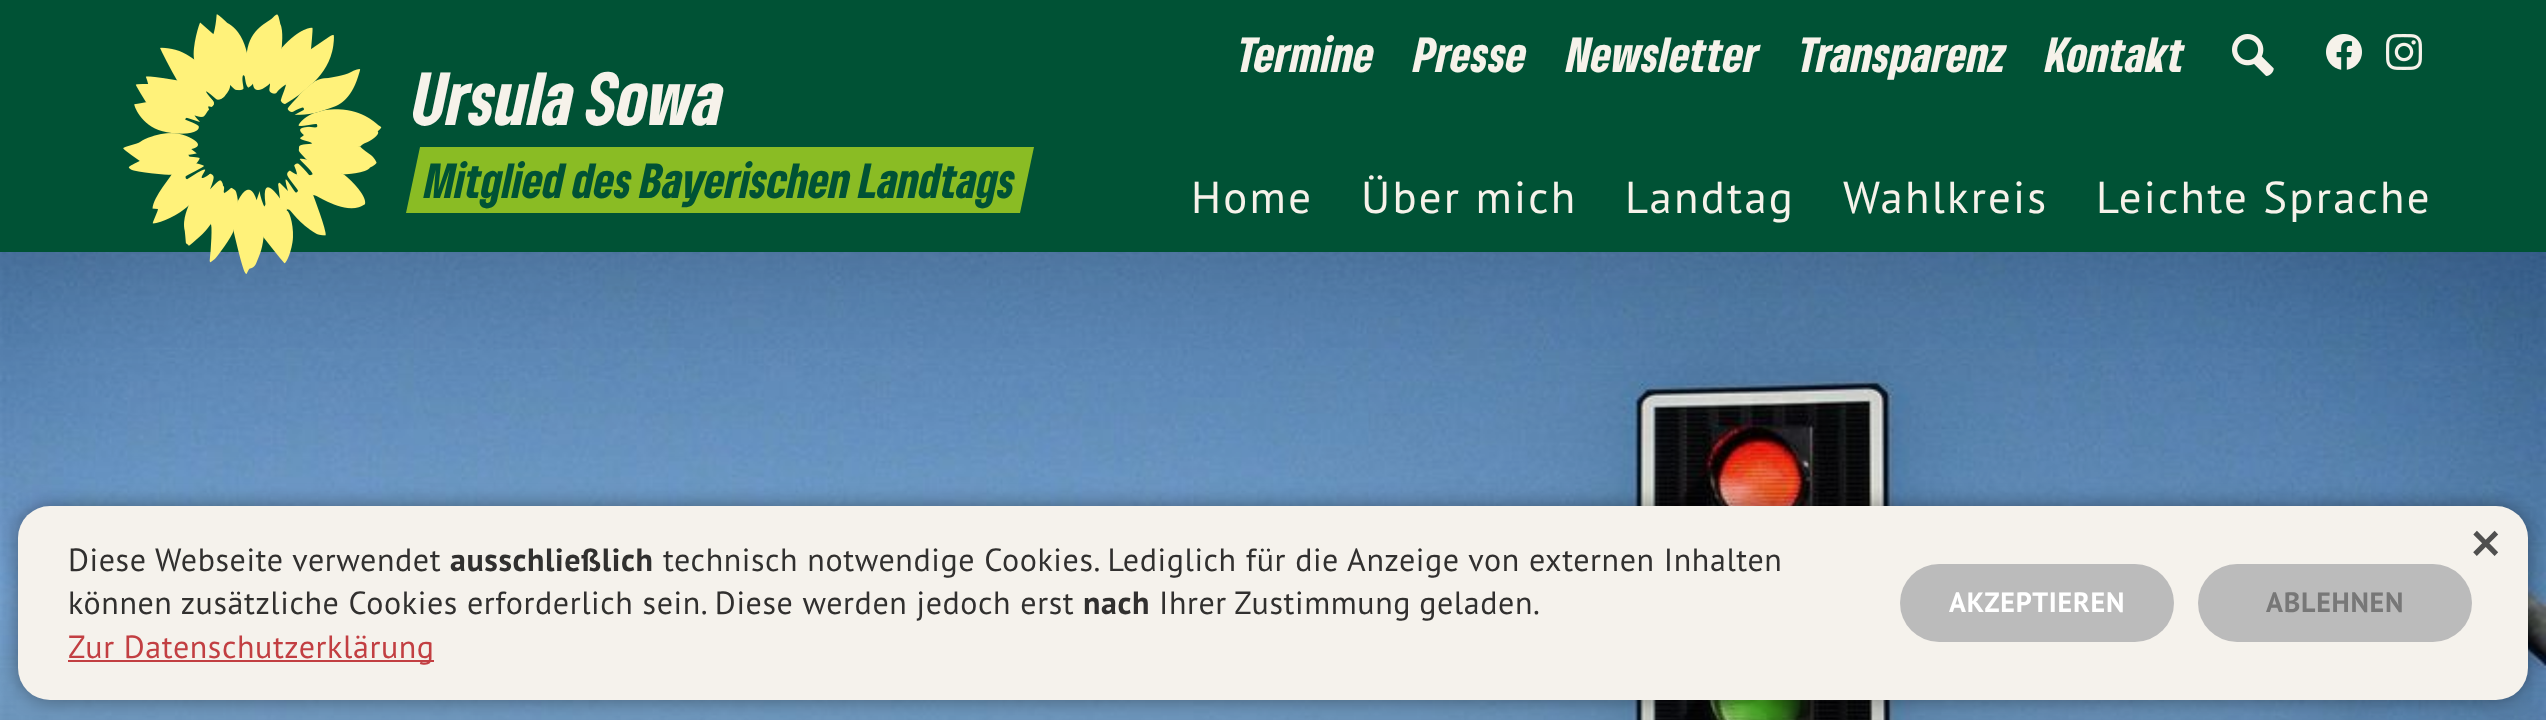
<svg xmlns="http://www.w3.org/2000/svg" width="2546" height="720" viewBox="0 0 2546 720">
  <rect width="100%" height="100%" fill="rgb(255,255,255)"/>
  <image x="0" y="252" width="2546" height="468" href="pic5.png"/>
  <rect x="0" y="0" width="2546" height="252" fill="rgba(0,0,0,0.1)" filter="blur(50px)"/>
  <rect x="0" y="0" width="2546" height="252" fill="rgb(0,82,53)"/>
  <g font-family="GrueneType" font-size="46" font-weight="900" letter-spacing="0.25" fill="rgb(246,242,234)">
    <text x="1238" y="72">Termine</text>
    <text x="1414" y="72">Presse</text>
    <text x="1567" y="72">Newsletter</text>
    <text x="1799" y="72">Transparenz</text>
    <text x="2046" y="72">Kontakt</text>
  </g>
  <image x="2232" y="34" width="42" height="42" href="pic1.png"/>
  <image x="2326" y="34" width="36" height="36" href="pic2.png"/>
  <image x="2386" y="34" width="36" height="36" href="pic3.png"/>
  <image x="123" y="14" width="259" height="260" href="pic4.png"/>
  <text x="413" y="125" font-family="GrueneType" font-size="70" font-weight="900" fill="rgb(246,242,234)">Ursula Sowa</text>
  <path d="M420 147H1034L1020 213H406Z" fill="rgb(138,188,36)"/>
  <text x="425" y="198" font-family="GrueneType" font-size="46" font-weight="900" fill="rgb(0,82,53)">Mitglied des Bayerischen Landtags</text>
  <g font-family="PT Sans" font-size="44.75" letter-spacing="2.25" fill="rgb(246,242,234)">
    <text x="1191" y="213">Home</text>
    <text x="1361" y="213">Über mich</text>
    <text x="1625" y="213">Landtag</text>
    <text x="1843" y="213">Wahlkreis</text>
    <text x="2096" y="213">Leichte Sprache</text>
  </g>
  <rect x="18" y="506" width="2510" height="194" rx="32" fill="rgba(0,0,0,0.4)" filter="blur(10px)"/>
  <rect x="18" y="506" width="2510" height="194" rx="32" fill="rgb(245,242,236)"/>
  <text x="2468" y="567" font-family="PT Sans" font-size="70" fill="rgb(80,80,79)">×</text>
  <text x="68" y="571" font-family="PT Sans" font-size="32" letter-spacing="0.6" fill="rgb(49,48,47)">Diese Webseite verwendet</text>
  <text x="450" y="571" font-family="PT Sans" font-size="32" font-weight="bold" letter-spacing="0.6" fill="rgb(49,48,47)">ausschließlich</text>
  <g font-family="PT Sans" font-size="32" letter-spacing="0.6" fill="rgb(49,48,47)">
    <text x="663" y="571">technisch notwendige Cookies. Lediglich für die Anzeige von externen Inhalten</text>
    <text x="68" y="614">können zusätzliche Cookies erforderlich sein. Diese werden jedoch erst</text>
  </g>
  <text x="1083" y="614" font-family="PT Sans" font-size="32" font-weight="bold" letter-spacing="0.6" fill="rgb(49,48,47)">nach</text>
  <text x="1159" y="614" word-spacing="-1" font-family="PT Sans" font-size="32" letter-spacing="0.6" fill="rgb(49,48,47)">Ihrer Zustimmung geladen.</text>
  <rect x="68" y="660" width="366" height="2" fill="rgb(194,63,66)"/>
  <text x="68" y="658" font-family="PT Sans" font-size="32" letter-spacing="0.6" fill="rgb(194,63,66)">Zur Datenschutzerklärung</text>
  <rect x="1900" y="564" width="274" height="78" rx="39" fill="rgb(187,187,187)"/>
  <text x="1949" y="612" font-family="PT Sans" font-size="28" font-weight="bold" letter-spacing="0.75" fill="rgb(255,255,255)">AKZEPTIEREN</text>
  <rect x="2198" y="564" width="274" height="78" rx="39" fill="rgb(187,187,187)"/>
  <text x="2266" y="612" font-family="PT Sans" font-size="28" font-weight="bold" letter-spacing="0.75" fill="rgb(119,119,119)">ABLEHNEN</text>
</svg>
